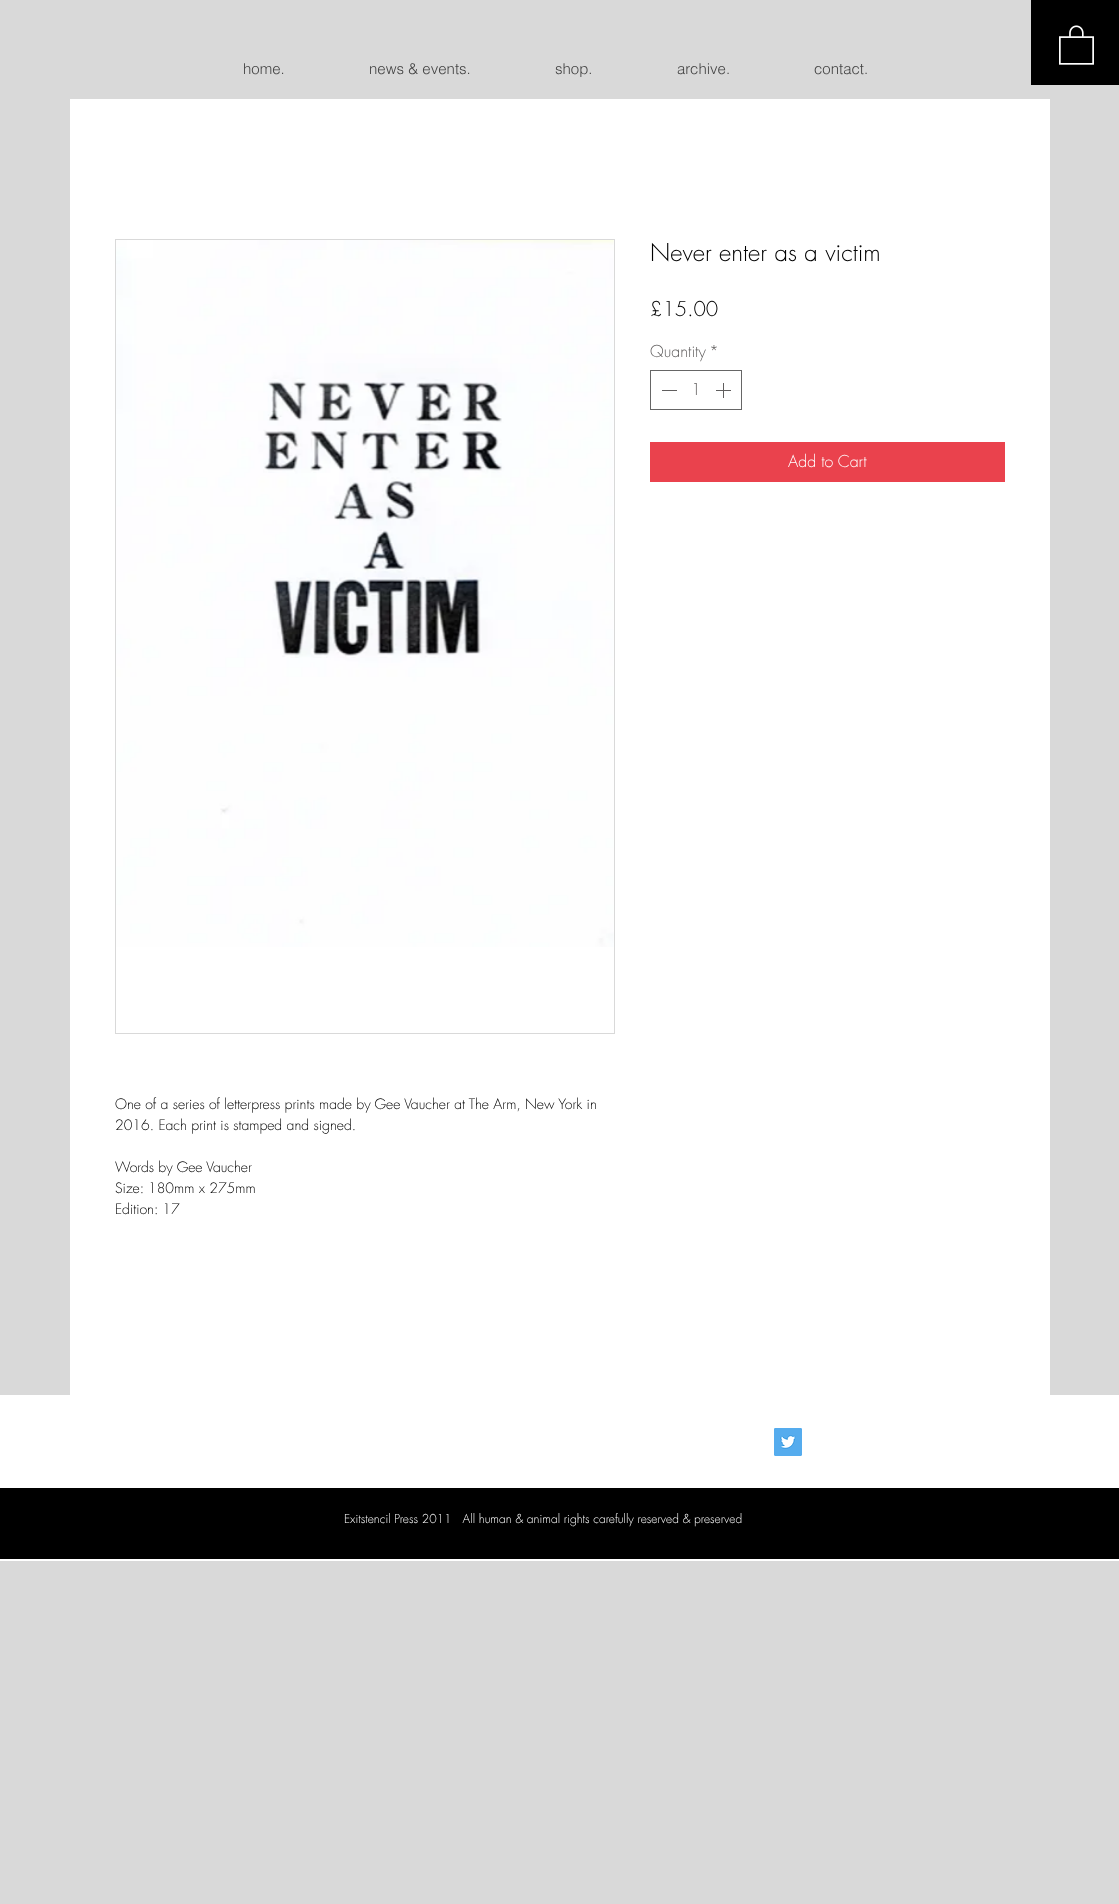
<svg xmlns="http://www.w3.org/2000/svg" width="1119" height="1904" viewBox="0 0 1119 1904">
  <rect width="100%" height="100%" fill="rgb(217,217,217)"/>
  <g font-family="helvetica" font-size="15" font-weight="300" fill="rgb(68,68,68)">
    <text x="243" y="74">home.</text>
    <text x="369" y="74">news &amp; events.</text>
    <text x="555" y="74">shop.</text>
    <text x="677" y="74">archive.</text>
    <text x="814" y="74">contact.</text>
  </g>
  <rect x="1031" y="0" width="88" height="85" fill="rgb(0,0,0)"/>
  <image x="1059" y="25" width="35" height="40" href="pic1.png"/>
  <rect x="70" y="99" width="980" height="1296" fill="rgb(255,255,255)"/>
  <text x="650" y="261" font-family="futura" font-size="24" font-weight="300" fill="rgb(0,0,0)">Never enter as a victim</text>
  <text x="650" y="316" font-family="futura" font-size="20" font-weight="300" fill="rgb(0,0,0)">£15.00</text>
  <g font-family="futura" font-size="16" font-weight="300" fill="rgb(96,94,94)">
    <text x="650" y="357">Quantity</text>
    <text x="709" y="357">*</text>
  </g>
  <rect x="650.5" y="370.5" width="91" height="39" fill="none" stroke="rgb(102,102,102)"/>
  <rect x="662" y="390" width="15" height="1" fill="rgb(96,94,94)"/>
  <text x="691" y="395" font-family="futura" font-size="16" font-weight="300" fill="rgb(96,94,94)">1</text>
  <image x="716" y="383" width="15" height="15" href="pic2.png"/>
  <rect x="650" y="442" width="355" height="40" fill="rgb(234,66,77)"/>
  <text x="788" y="467" font-family="futura" font-size="16" font-weight="300" fill="rgb(255,255,255)">Add to Cart</text>
  <rect x="115.5" y="239.5" width="499" height="794" fill="none" stroke="rgb(217,217,217)"/>
  <image x="116" y="240" width="498" height="707" href="pic3.png"/>
  <g font-family="futura" font-size="14" font-weight="300" fill="rgb(0,0,0)">
    <text>
      <tspan x="115" y="1109">One of a series of letterpress prints made by Gee Vaucher at The Arm, New York in</tspan>
      <tspan x="115" y="1130">2016. Each print is stamped and signed.</tspan>
    </text>
    <text>
      <tspan x="115" y="1172">Words by Gee Vaucher</tspan>
      <tspan x="115" y="1193">Size: 180mm x 275mm</tspan>
      <tspan x="115" y="1214">Edition: 17</tspan>
    </text>
  </g>
  <rect x="0" y="1395" width="1119" height="166" fill="rgb(255,255,255)"/>
  <image x="774" y="1428" width="28" height="28" href="pic4.png"/>
  <rect x="0" y="1488" width="1119" height="71" fill="rgb(0,0,0)"/>
  <text x="344" y="1523" font-family="futura" font-size="12" font-weight="300" fill="rgb(255,255,255)" xml:space="preserve">Exitstencil Press 2011   All human &amp; animal rights carefully reserved &amp; preserved</text>
</svg>
